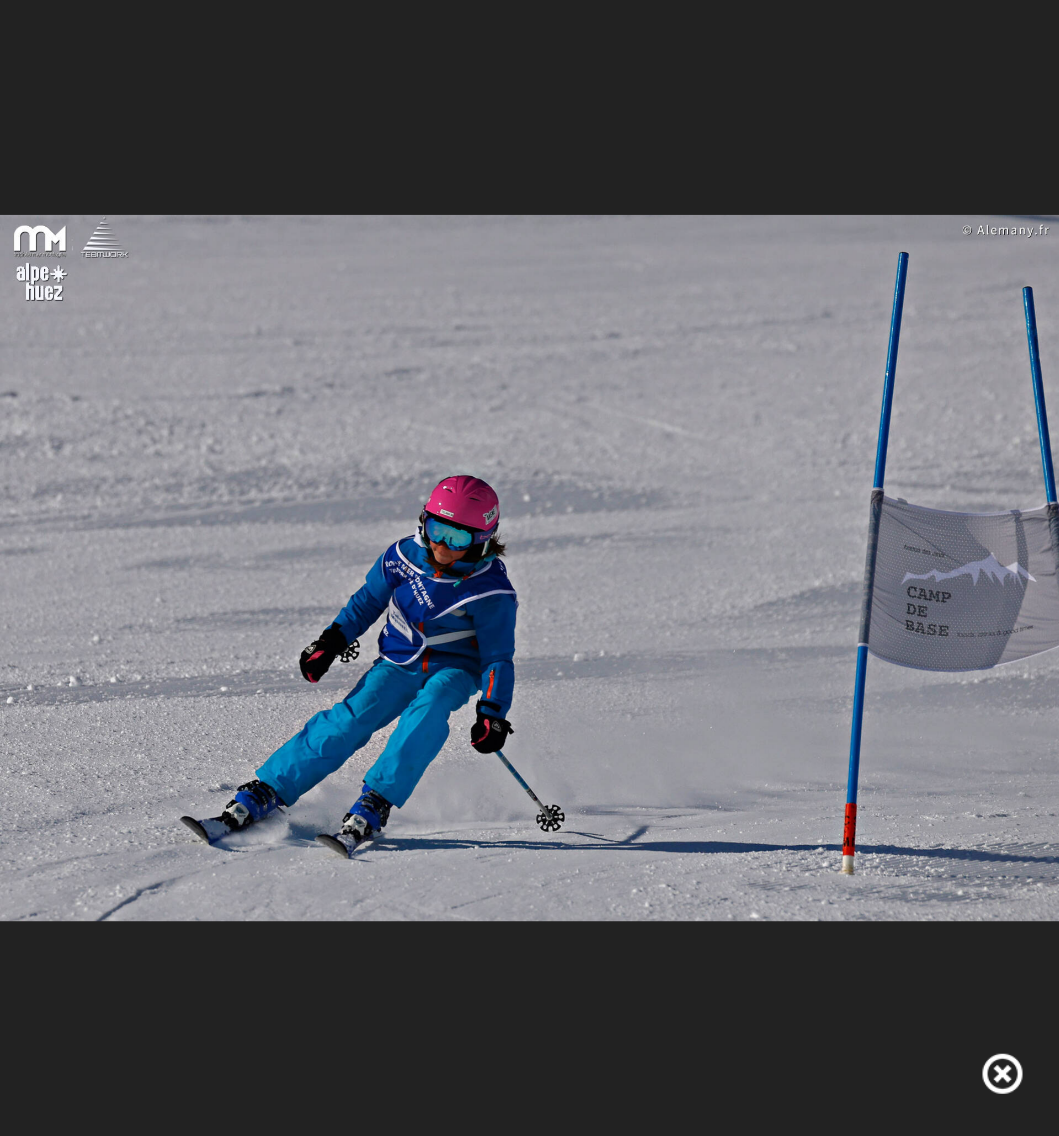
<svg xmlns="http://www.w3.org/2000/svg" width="1059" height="1136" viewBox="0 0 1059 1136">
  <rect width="100%" height="100%" fill="rgb(34,34,34)"/>
  <image x="0" y="214" width="1059" height="708" href="pic1.png"/>
  <image x="982" y="1053" width="41" height="41" href="pic2.png"/>
</svg>
